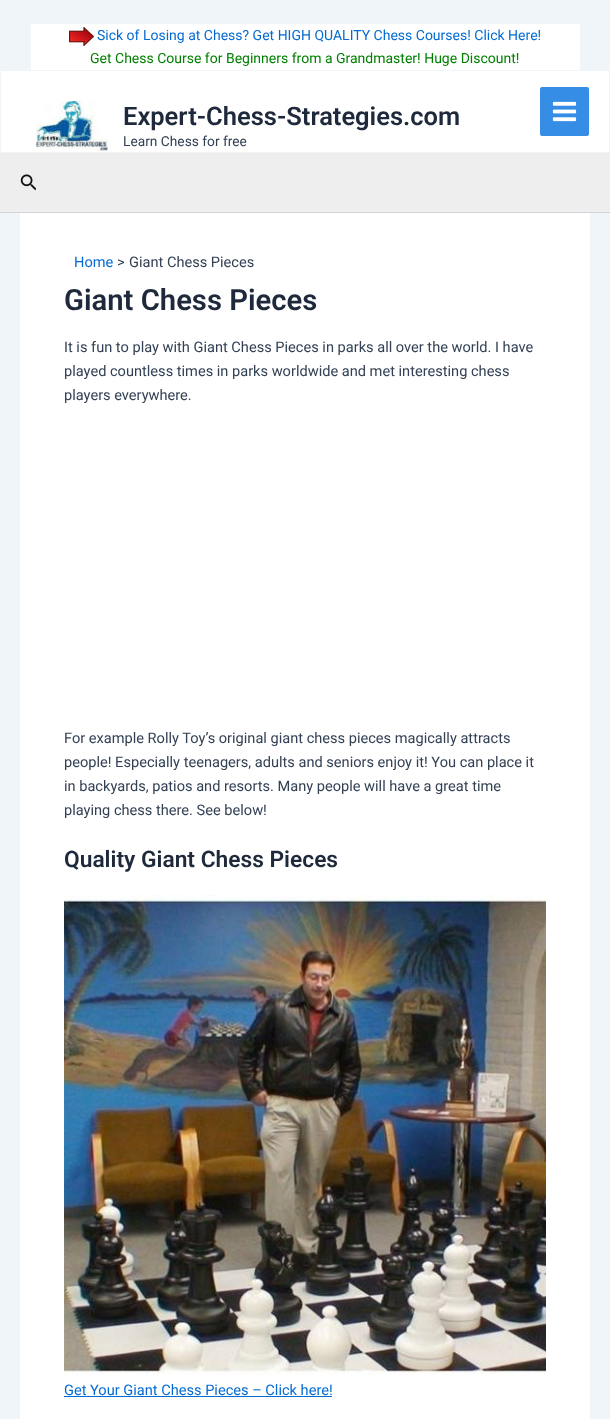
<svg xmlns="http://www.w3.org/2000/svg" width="610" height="1419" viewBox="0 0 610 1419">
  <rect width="100%" height="100%" fill="rgb(240,245,250)"/>
  <rect x="31" y="24" width="549" height="46" fill="rgb(255,255,255)"/>
  <image x="69" y="27" width="25" height="19" href="pic1.png"/>
  <text x="97" y="40" font-family="Roboto" font-size="14" fill="rgb(4,107,210)">Sick of Losing at Chess? Get HIGH QUALITY Chess Courses! Click Here!</text>
  <text x="90" y="63" font-family="Roboto" font-size="14" fill="rgb(0,128,0)">Get Chess Course for Beginners from a Grandmaster! Huge Discount!</text>
  <rect x="1" y="71" width="608" height="81" fill="rgb(255,255,255)"/>
  <image x="36" y="101" width="72" height="50" href="pic2.png"/>
  <text x="123" y="125" font-family="Roboto" font-size="25.5" font-weight="600" fill="rgb(30,41,59)">Expert-Chess-Strategies.com</text>
  <text x="123" y="146" font-family="Roboto" font-size="13.75" fill="rgb(51,65,85)">Learn Chess for free</text>
  <rect x="540" y="87" width="49" height="49" rx="2" fill="rgb(53,141,229)"/>
  <image x="552" y="101" width="25" height="21" href="pic3.png"/>
  <rect x="0" y="153" width="610" height="59" fill="rgb(238,238,238)"/>
  <rect x="0" y="212" width="610" height="1" fill="rgb(209,213,219)"/>
  <image x="20" y="174" width="16" height="17" href="pic4.png"/>
  <rect x="20" y="213" width="570" height="1206" fill="rgb(255,255,255)"/>
  <text x="74" y="267" font-family="Roboto" font-size="14.6" fill="rgb(4,107,210)">Home</text>
  <g font-family="Roboto" font-size="14.6" fill="rgb(51,65,85)">
    <text x="117" y="267">&gt;</text>
    <text x="129" y="267">Giant Chess Pieces</text>
  </g>
  <text x="64" y="310" font-family="Roboto" font-size="29.25" font-weight="600" fill="rgb(30,41,59)">Giant Chess Pieces</text>
  <g font-family="Roboto" font-size="14.6" fill="rgb(51,65,85)">
    <text>
      <tspan x="64" y="352">It is fun to play with Giant Chess Pieces in parks all over the world. I have</tspan>
      <tspan x="64" y="376">played countless times in parks worldwide and met interesting chess</tspan>
      <tspan x="64" y="400">players everywhere.</tspan>
    </text>
    <text>
      <tspan x="64" y="743">For example Rolly Toy’s original giant chess pieces magically attracts</tspan>
      <tspan x="64" y="767">people! Especially teenagers, adults and seniors enjoy it! You can place it</tspan>
      <tspan x="64" y="791">in backyards, patios and resorts. Many people will have a great time</tspan>
      <tspan x="64" y="815">playing chess there. See below!</tspan>
    </text>
  </g>
  <text x="64" y="867" font-family="Roboto" font-size="22.75" font-weight="600" fill="rgb(30,41,59)">Quality Giant Chess Pieces</text>
  <image x="64" y="895" width="482" height="480" href="pic5.png"/>
  <text x="64" y="1395" font-family="Roboto" font-size="14.6" fill="rgb(4,107,210)">Get Your Giant Chess Pieces – Click here!</text>
  <rect x="64" y="1396" width="268" height="1" fill="rgb(4,107,210)"/>
</svg>
